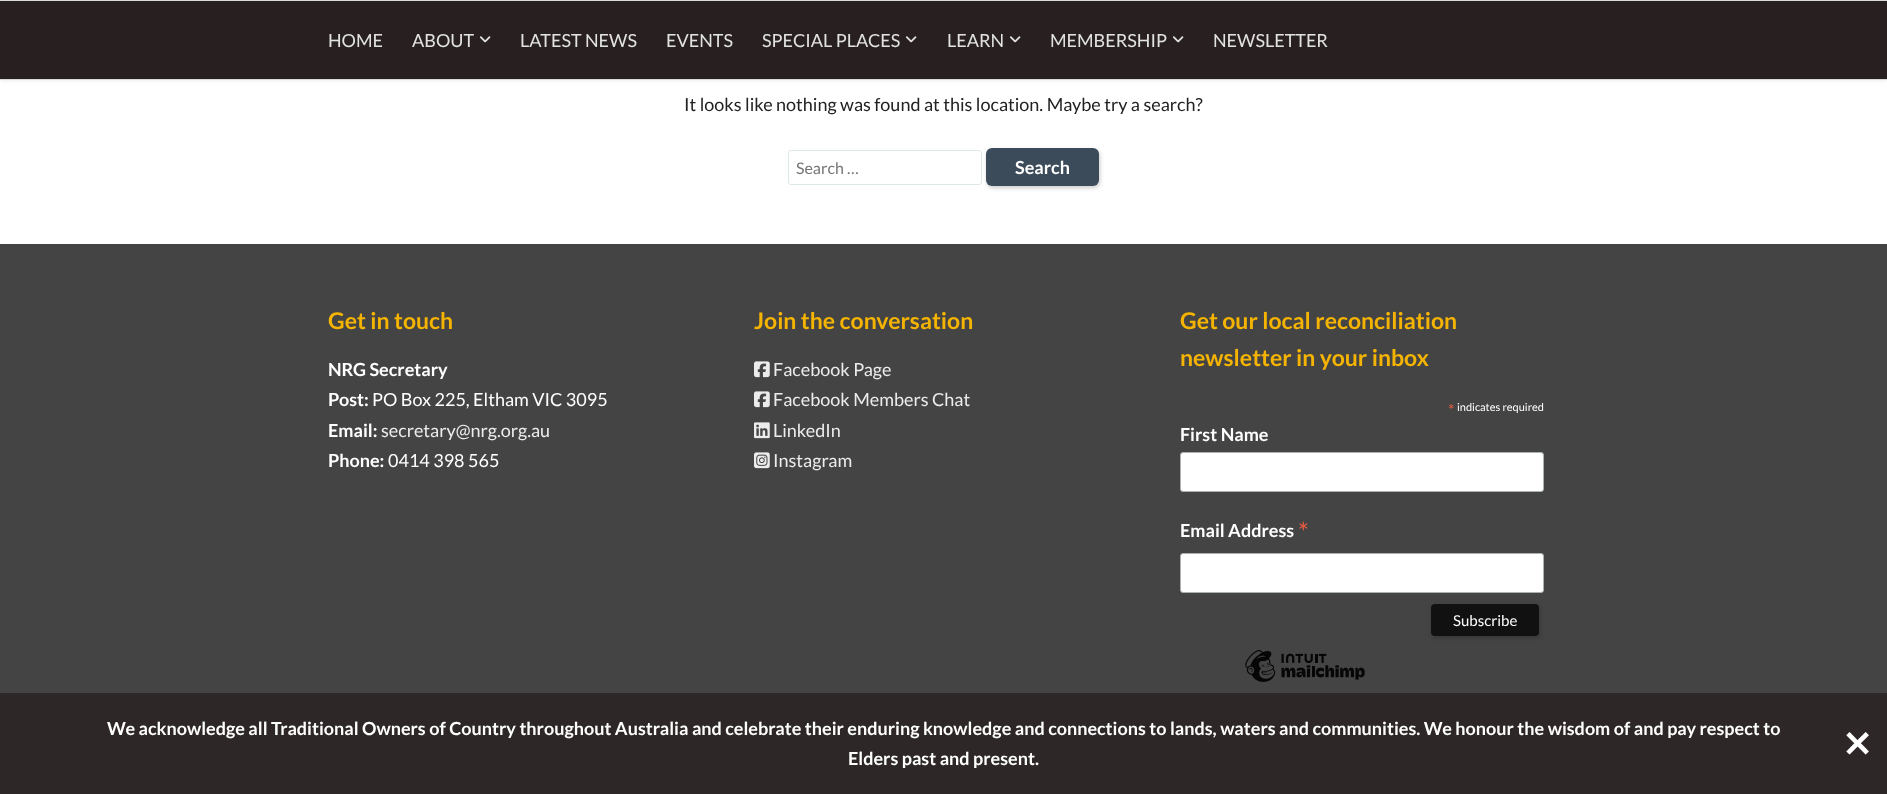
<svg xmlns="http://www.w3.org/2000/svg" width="1887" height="794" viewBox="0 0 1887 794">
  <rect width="100%" height="100%" fill="rgb(255,255,255)"/>
  <rect x="0" y="0" width="1887" height="80" fill="rgba(0,0,0,0.1)" filter="blur(2.5px)"/>
  <rect x="0" y="1" width="1887" height="78" fill="rgb(40,32,32)"/>
  <rect x="0" y="0" width="1887" height="1" fill="rgb(218,218,218)"/>
  <rect x="0" y="79" width="1887" height="1" fill="rgb(218,218,218)"/>
  <g font-family="Lato" font-size="18" fill="rgb(226,226,226)">
    <text x="328" y="47">HOME</text>
    <text x="412" y="47">ABOUT</text>
  </g>
  <image x="479" y="36" width="12" height="7" href="pic1.png"/>
  <g font-family="Lato" font-size="18" fill="rgb(226,226,226)">
    <text x="520" y="47">LATEST NEWS</text>
    <text x="666" y="47">EVENTS</text>
    <text x="762" y="47">SPECIAL PLACES</text>
  </g>
  <image x="905" y="36" width="12" height="7" href="pic1.png"/>
  <text x="947" y="47" font-family="Lato" font-size="18" fill="rgb(226,226,226)">LEARN</text>
  <image x="1009" y="36" width="12" height="7" href="pic1.png"/>
  <text x="1050" y="47" font-family="Lato" font-size="18" fill="rgb(226,226,226)">MEMBERSHIP</text>
  <image x="1172" y="36" width="12" height="7" href="pic1.png"/>
  <text x="1213" y="47" font-family="Lato" font-size="18" fill="rgb(226,226,226)">NEWSLETTER</text>
  <text x="684" y="111" font-family="Lato" font-size="18" fill="rgb(34,34,34)">It looks like nothing was found at this location. Maybe try a search?</text>
  <rect x="788.5" y="150.5" width="193" height="34" rx="2.5" fill="none" stroke="rgb(222,233,230)"/>
  <text x="796" y="174" font-family="Lato" font-size="16" fill="rgb(117,117,117)">Search …</text>
  <rect x="987" y="150" width="113" height="38" rx="6" fill="rgba(0,0,0,0.2)" filter="blur(2px)"/>
  <rect x="986" y="148" width="113" height="38" rx="6" fill="rgb(60,75,90)"/>
  <text x="1015" y="174" font-family="Lato" font-size="18" font-weight="bold" fill="rgb(255,255,255)">Search</text>
  <rect x="0" y="244" width="1887" height="449" fill="rgb(68,68,68)"/>
  <rect x="0" y="693" width="1887" height="101" fill="rgb(46,39,39)"/>
  <text x="328" y="329" font-family="Lato" font-size="23" font-weight="bold" fill="rgb(245,180,1)">Get in touch</text>
  <g font-family="Lato" font-size="18" font-weight="bold" fill="rgb(255,255,255)">
    <text>
      <tspan x="328" y="376">NRG Secretary</tspan>
      <tspan x="328" y="406">Post:</tspan>
    </text>
  </g>
  <text x="372" y="406" font-family="Lato" font-size="18" fill="rgb(255,255,255)">PO Box 225, Eltham VIC 3095</text>
  <text x="328" y="437" font-family="Lato" font-size="18" font-weight="bold" fill="rgb(255,255,255)">Email:</text>
  <text x="381" y="437" font-family="Lato" font-size="18" fill="rgb(236,236,236)">secretary@nrg.org.au</text>
  <text x="328" y="467" font-family="Lato" font-size="18" font-weight="bold" fill="rgb(255,255,255)">Phone:</text>
  <text x="388" y="467" font-family="Lato" font-size="18" fill="rgb(255,255,255)">0414 398 565</text>
  <text x="754" y="329" font-family="Lato" font-size="23" font-weight="bold" fill="rgb(245,180,1)">Join the conversation</text>
  <image x="754" y="361" width="16" height="17" href="pic2.png"/>
  <text x="773" y="376" font-family="Lato" font-size="18" fill="rgb(236,236,236)">Facebook Page</text>
  <image x="754" y="391" width="16" height="17" href="pic2.png"/>
  <text x="773" y="406" font-family="Lato" font-size="18" fill="rgb(236,236,236)">Facebook Members Chat</text>
  <image x="754" y="422" width="16" height="17" href="pic3.png"/>
  <text x="773" y="437" font-family="Lato" font-size="18" fill="rgb(236,236,236)">LinkedIn</text>
  <image x="754" y="452" width="16" height="17" href="pic4.png"/>
  <text x="773" y="467" font-family="Lato" font-size="18" fill="rgb(236,236,236)">Instagram</text>
  <g font-family="Lato" font-size="23" font-weight="bold" fill="rgb(245,180,1)">
    <text>
      <tspan x="1180" y="329">Get our local reconciliation</tspan>
      <tspan x="1180" y="366">newsletter in your inbox</tspan>
    </text>
  </g>
  <text x="1448" y="416" font-family="Lato" font-size="16" fill="rgb(232,92,65)">*</text>
  <text x="1457" y="411" font-family="Lato" font-size="11" fill="rgb(255,255,255)">indicates required</text>
  <text x="1180" y="441" font-family="Lato" font-size="18" font-weight="bold" fill="rgb(255,255,255)">First Name</text>
  <rect x="1180.5" y="452.5" width="363" height="39" rx="2.5" fill="rgb(255,255,255)" stroke="rgb(171,176,178)"/>
  <text x="1180" y="537" font-family="Lato" font-size="18" font-weight="bold" fill="rgb(255,255,255)">Email Address</text>
  <text x="1298" y="542" font-family="Lato" font-size="27" fill="rgb(232,92,65)">*</text>
  <rect x="1180.5" y="553.5" width="363" height="39" rx="2.5" fill="rgb(255,255,255)" stroke="rgb(171,176,178)"/>
  <rect x="1432" y="606" width="108" height="32" rx="4" fill="rgba(0,0,0,0.2)" filter="blur(2px)"/>
  <rect x="1431" y="604" width="108" height="32" rx="4" fill="rgb(17,17,17)"/>
  <text x="1453" y="626" font-family="Lato" font-size="15" fill="rgb(255,255,255)">Subscribe</text>
  <image x="1245" y="650" width="120" height="32" href="pic5.png"/>
  <g font-family="Lato" font-size="18" font-weight="bold" fill="rgb(255,255,255)">
    <text x="107" y="735">We acknowledge all Traditional Owners of Country throughout Australia and celebrate their enduring knowledge and connections to lands, waters and communities. We honour the wisdom of and pay respect to</text>
    <text x="848" y="765">Elders past and present.</text>
  </g>
  <text x="1842" y="757" font-family="DejaVu Sans" font-size="36" font-weight="bold" fill="rgb(255,255,255)">✕</text>
</svg>
